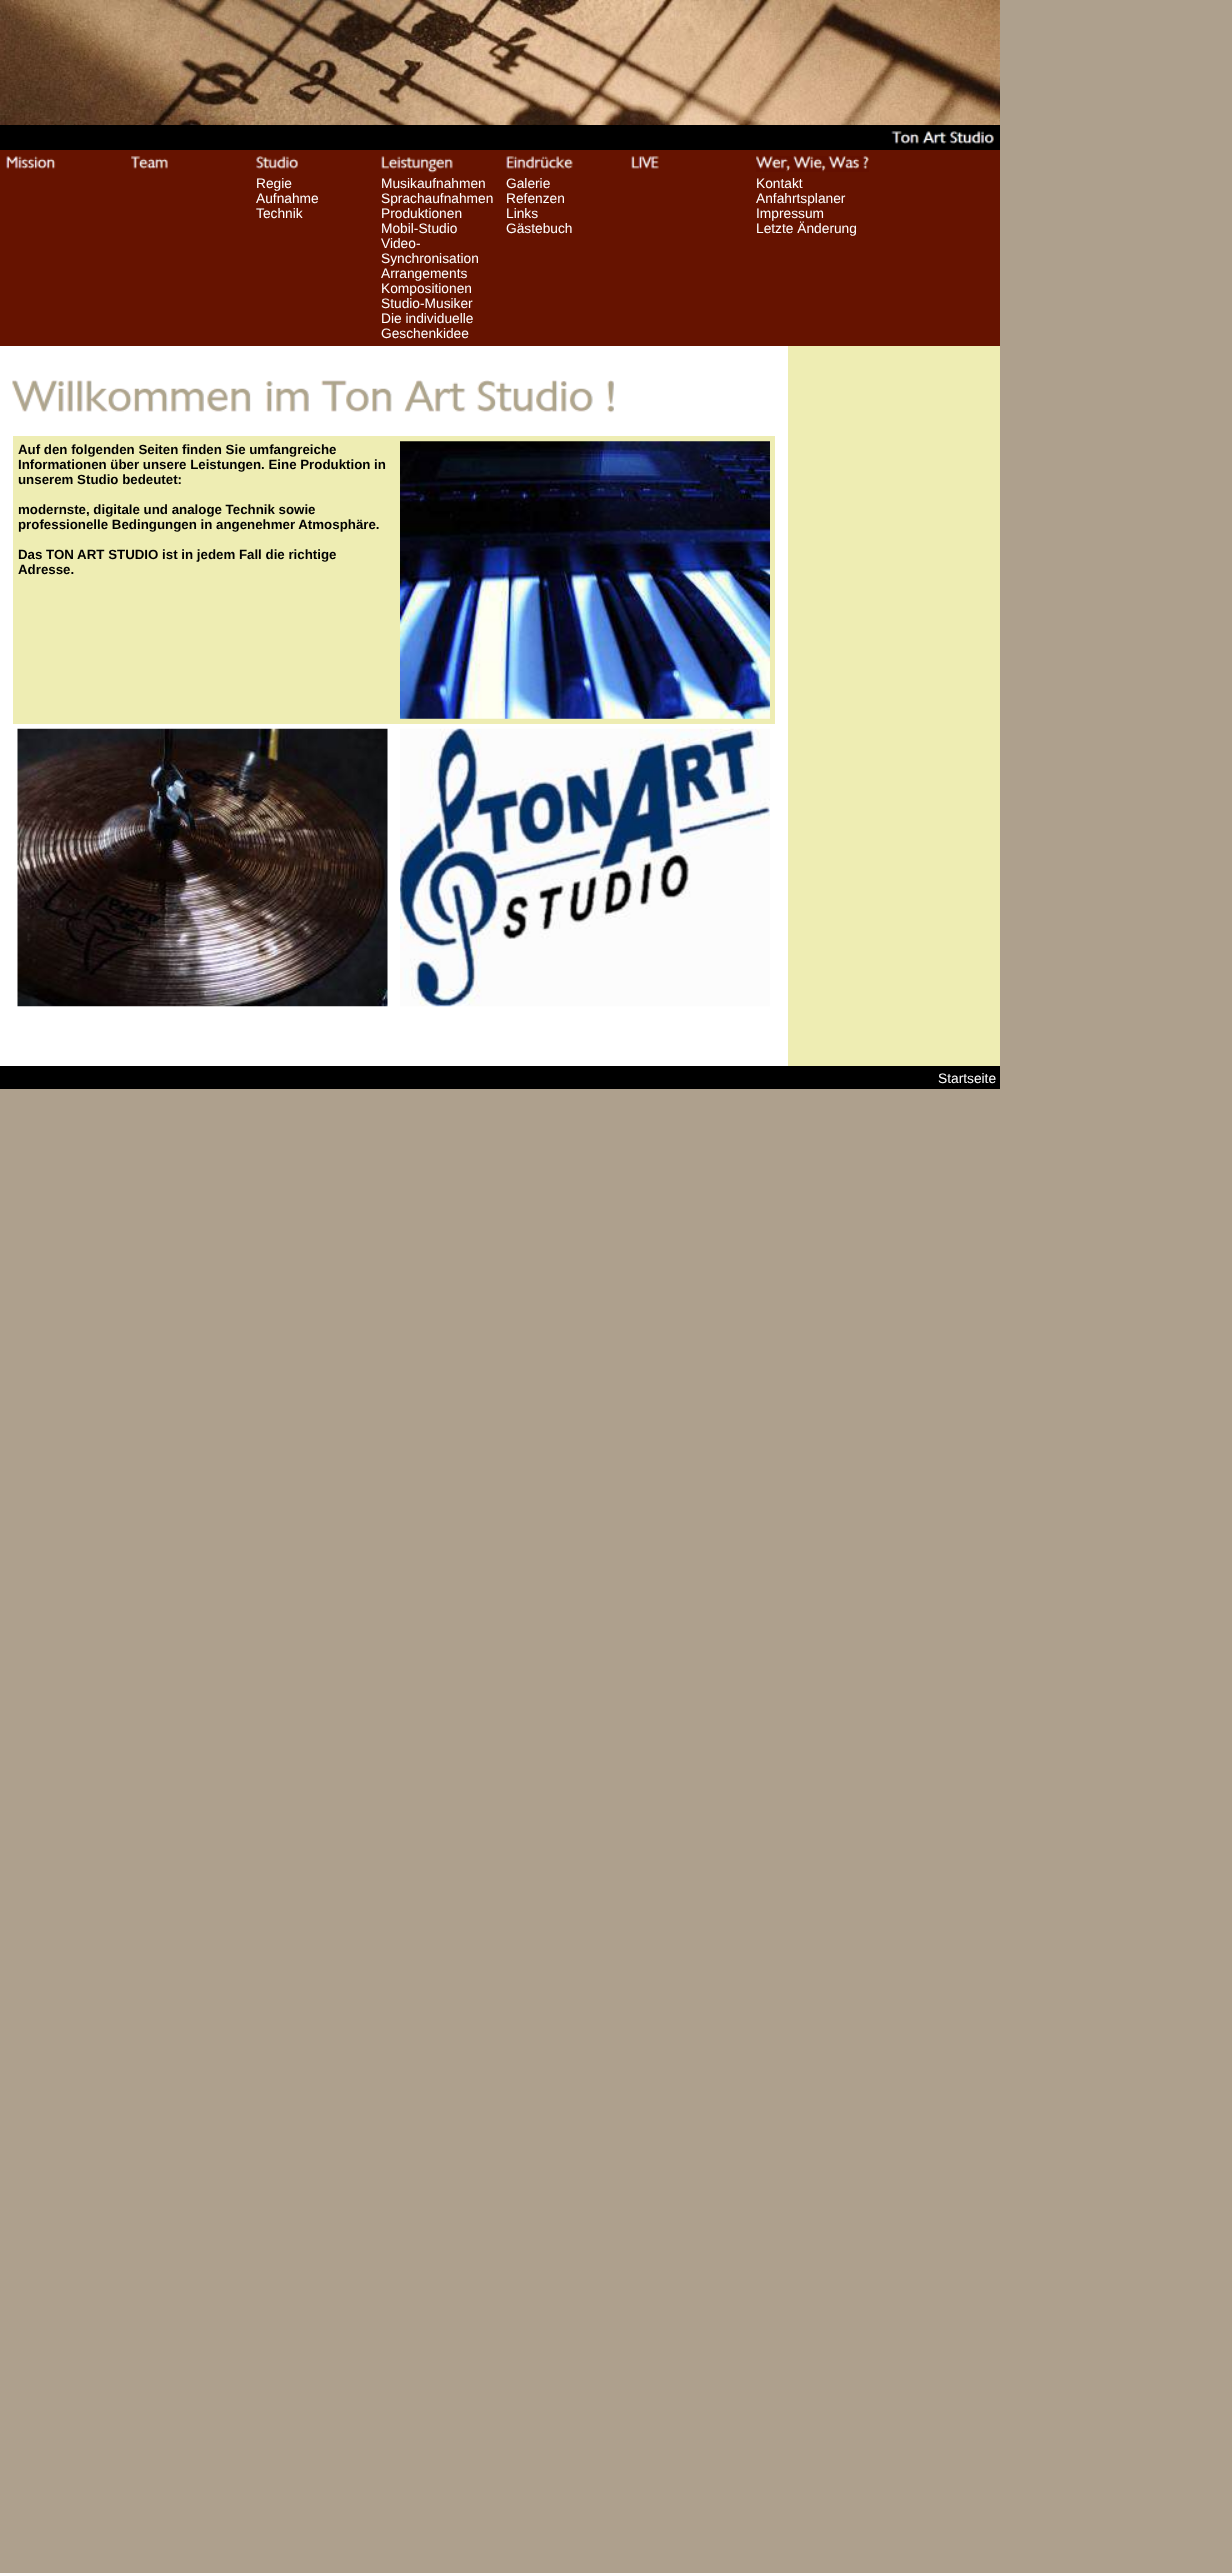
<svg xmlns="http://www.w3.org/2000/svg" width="1232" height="2573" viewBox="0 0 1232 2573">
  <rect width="100%" height="100%" fill="rgb(174,160,141)"/>
  <rect x="0" y="150" width="1000" height="196" fill="rgb(102,19,0)"/>
  <image x="0" y="0" width="1000" height="125" href="pic1.png"/>
  <image x="0" y="125" width="1000" height="25" href="pic2.png"/>
  <image x="6" y="156" width="50" height="13" href="pic3.png"/>
  <image x="131" y="156" width="37" height="13" href="pic4.png"/>
  <image x="256" y="156" width="43" height="13" href="pic5.png"/>
  <image x="381" y="156" width="72" height="17" href="pic6.png"/>
  <image x="506" y="156" width="67" height="13" href="pic7.png"/>
  <image x="631" y="156" width="28" height="13" href="pic8.png"/>
  <image x="756" y="156" width="113" height="16" href="pic9.png"/>
  <g font-family="Liberation Sans" font-size="13.75" fill="rgb(255,255,255)">
    <text>
      <tspan x="256" y="188">Regie</tspan>
      <tspan x="256" y="203">Aufnahme</tspan>
      <tspan x="256" y="218">Technik</tspan>
    </text>
    <text>
      <tspan x="381" y="188">Musikaufnahmen</tspan>
      <tspan x="381" y="203">Sprachaufnahmen</tspan>
      <tspan x="381" y="218">Produktionen</tspan>
      <tspan x="381" y="233">Mobil-Studio</tspan>
      <tspan x="381" y="248">Video-</tspan>
      <tspan x="381" y="263">Synchronisation</tspan>
      <tspan x="381" y="278">Arrangements</tspan>
      <tspan x="381" y="293">Kompositionen</tspan>
      <tspan x="381" y="308">Studio-Musiker</tspan>
      <tspan x="381" y="323">Die individuelle</tspan>
      <tspan x="381" y="338">Geschenkidee</tspan>
    </text>
    <text>
      <tspan x="506" y="188">Galerie</tspan>
      <tspan x="506" y="203">Refenzen</tspan>
      <tspan x="506" y="218">Links</tspan>
      <tspan x="506" y="233">Gästebuch</tspan>
    </text>
    <text>
      <tspan x="756" y="188">Kontakt</tspan>
      <tspan x="756" y="203">Anfahrtsplaner</tspan>
      <tspan x="756" y="218">Impressum</tspan>
      <tspan x="756" y="233">Letzte Änderung</tspan>
    </text>
  </g>
  <rect x="0" y="346" width="788" height="720" fill="rgb(255,255,255)"/>
  <rect x="788" y="346" width="212" height="5" fill="rgb(238,237,179)"/>
  <image x="12" y="380" width="602" height="33" href="pic10.png"/>
  <rect x="788" y="351" width="212" height="715" fill="rgb(238,237,179)"/>
  <rect x="13" y="436" width="762" height="288" fill="rgb(238,237,179)"/>
  <g font-family="Liberation Sans" font-size="13.3" font-weight="bold" fill="rgb(0,0,0)">
    <text>
      <tspan x="18" y="454">Auf den folgenden Seiten finden Sie umfangreiche</tspan>
      <tspan x="18" y="469">Informationen über unsere Leistungen. Eine Produktion in</tspan>
      <tspan x="18" y="484">unserem Studio bedeutet:</tspan>
    </text>
    <text>
      <tspan x="18" y="514">modernste, digitale und analoge Technik sowie</tspan>
      <tspan x="18" y="529">professionelle Bedingungen in angenehmer Atmosphäre.</tspan>
    </text>
    <text>
      <tspan x="18" y="559">Das TON ART STUDIO ist in jedem Fall die richtige</tspan>
      <tspan x="18" y="574">Adresse.</tspan>
    </text>
  </g>
  <image x="400" y="441" width="370" height="278" href="pic11.png"/>
  <image x="17" y="728" width="371" height="279" href="pic12.png"/>
  <image x="400" y="728" width="370" height="279" href="pic13.png"/>
  <rect x="0" y="1066" width="1000" height="23" fill="rgb(0,0,0)"/>
  <text x="938" y="1083" font-family="Liberation Sans" font-size="13.75" fill="rgb(255,255,255)">Startseite</text>
</svg>
